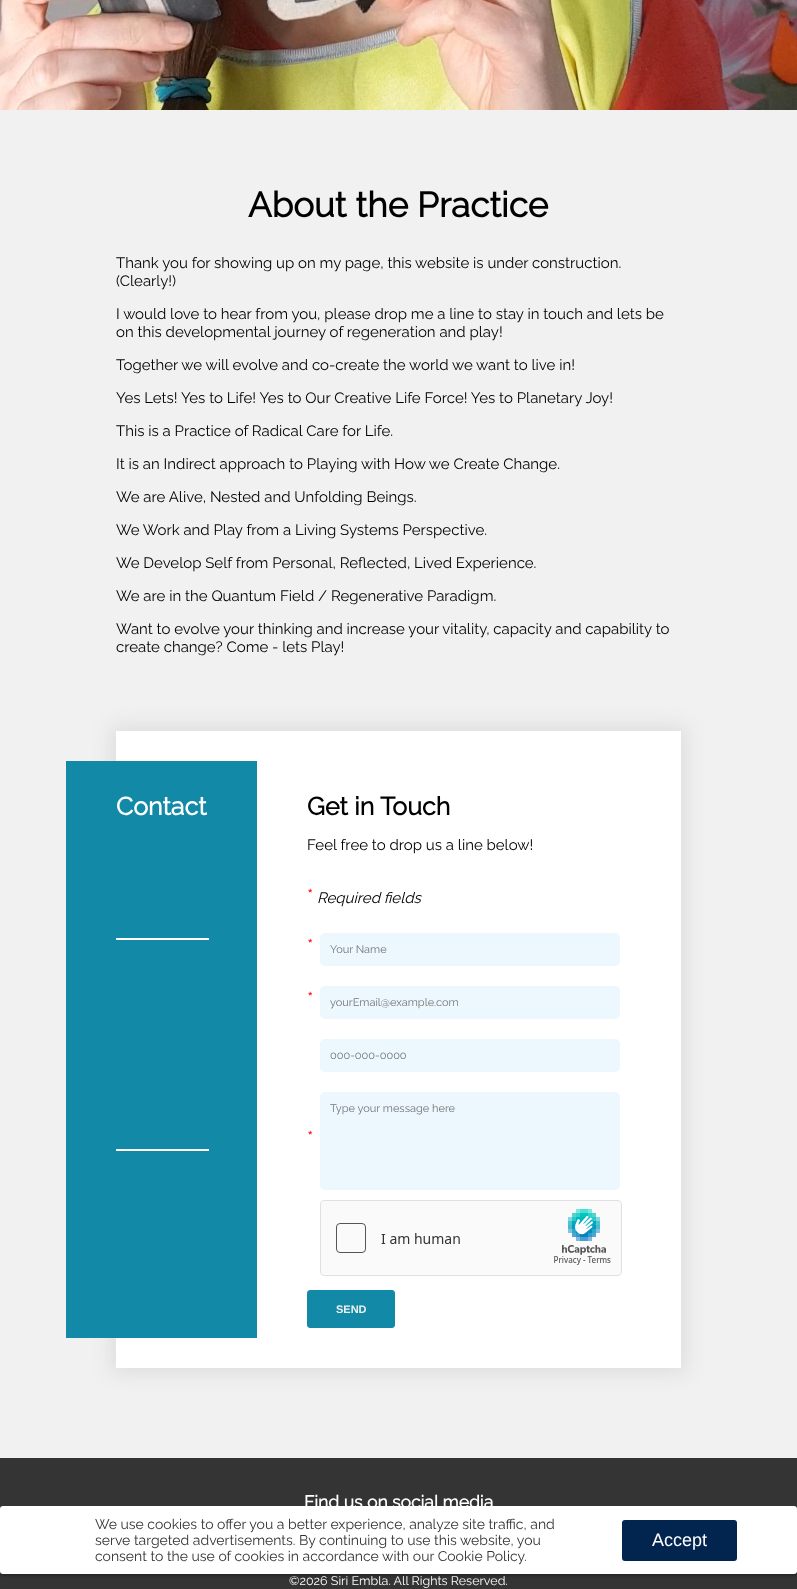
<svg xmlns="http://www.w3.org/2000/svg" width="797" height="1589" viewBox="0 0 797 1589">
  <rect width="100%" height="100%" fill="rgb(241,241,241)"/>
  <image x="0" y="0" width="797" height="110" href="pic1.png"/>
  <text x="248" y="217" font-family="Raleway" font-size="35" font-weight="bold" fill="rgb(0,0,0)">About the Practice</text>
  <g font-family="Raleway" font-size="15" font-weight="100" fill="rgb(0,0,0)">
    <text>
      <tspan x="116" y="268">Thank you for showing up on my page, this website is under construction.</tspan>
      <tspan x="116" y="286">(Clearly!)</tspan>
    </text>
    <text>
      <tspan x="116" y="319">I would love to hear from you, please drop me a line to stay in touch and lets be</tspan>
      <tspan x="116" y="337">on this developmental journey of regeneration and play!</tspan>
    </text>
    <text x="116" y="370">Together we will evolve and co-create the world we want to live in!</text>
    <text x="116" y="403">Yes Lets! Yes to Life! Yes to Our Creative Life Force! Yes to Planetary Joy!</text>
    <text x="116" y="436">This is a Practice of Radical Care for Life.</text>
    <text x="116" y="469">It is an Indirect approach to Playing with How we Create Change.</text>
    <text x="116" y="502">We are Alive, Nested and Unfolding Beings.</text>
    <text x="116" y="535">We Work and Play from a Living Systems Perspective.</text>
    <text x="116" y="568">We Develop Self from Personal, Reflected, Lived Experience.</text>
    <text x="116" y="601">We are in the Quantum Field / Regenerative Paradigm.</text>
    <text>
      <tspan x="116" y="634">Want to evolve your thinking and increase your vitality, capacity and capability to</tspan>
      <tspan x="116" y="652">create change? Come - lets Play!</tspan>
    </text>
  </g>
  <rect x="111" y="726" width="575" height="647" fill="rgb(221,221,221)" filter="blur(10px)"/>
  <rect x="116" y="731" width="565" height="637" fill="rgb(255,255,255)"/>
  <rect x="66" y="761" width="191" height="577" fill="rgb(18,137,167)"/>
  <text x="116" y="815" font-family="Raleway" font-size="25" font-weight="bold" fill="rgb(255,255,255)">Contact</text>
  <rect x="116" y="938" width="93" height="2" fill="rgb(255,255,255)"/>
  <rect x="116" y="1149" width="93" height="2" fill="rgb(255,255,255)"/>
  <text x="307" y="815" font-family="Raleway" font-size="25" font-weight="bold" fill="rgb(0,0,0)">Get in Touch</text>
  <text x="307" y="850" font-family="Raleway" font-size="15" font-weight="100" fill="rgb(0,0,0)">Feel free to drop us a line below!</text>
  <text x="307" y="903" font-family="Raleway" font-size="20" font-weight="100" fill="rgb(255,0,0)">*</text>
  <text x="317" y="903" font-family="Raleway" font-size="15" font-weight="100" font-style="italic" fill="rgb(0,0,0)">Required fields</text>
  <text x="307" y="953" font-family="Raleway" font-size="20" font-weight="100" fill="rgb(255,0,0)">*</text>
  <rect x="320" y="933" width="300" height="33" rx="5" fill="rgb(236,247,254)"/>
  <text x="330" y="953" font-family="Raleway" font-size="11" font-weight="100" fill="rgb(117,117,117)">Your Name</text>
  <text x="307" y="1006" font-family="Raleway" font-size="20" font-weight="100" fill="rgb(255,0,0)">*</text>
  <rect x="320" y="986" width="300" height="33" rx="5" fill="rgb(236,247,254)"/>
  <text x="330" y="1006" font-family="Raleway" font-size="11" font-weight="100" fill="rgb(117,117,117)">yourEmail@example.com</text>
  <rect x="320" y="1039" width="300" height="33" rx="5" fill="rgb(236,247,254)"/>
  <text x="330" y="1059" font-family="Raleway" font-size="11" font-weight="100" fill="rgb(117,117,117)">000-000-0000</text>
  <rect x="320" y="1092" width="300" height="98" rx="5" fill="rgb(236,247,254)"/>
  <text x="330" y="1112" font-family="Raleway" font-size="11" font-weight="100" fill="rgb(117,117,117)">Type your message here</text>
  <text x="307" y="1145" font-family="Raleway" font-size="20" font-weight="100" fill="rgb(255,0,0)">*</text>
  <image x="320" y="1200" width="302" height="76" href="pic2.png"/>
  <rect x="307.5" y="1290.5" width="87" height="37" rx="2.5" fill="rgb(18,137,167)" stroke="rgb(18,137,167)"/>
  <text x="336" y="1313" font-family="Liberation Sans" font-size="11" font-weight="bold" fill="rgb(241,241,241)">SEND</text>
  <rect x="0" y="1458" width="797" height="131" fill="rgb(52,52,52)"/>
  <text x="304" y="1508" font-family="Raleway" font-size="17.5" font-weight="bold" fill="rgb(255,255,255)">Find us on social media</text>
  <text x="289" y="1585" font-family="Raleway" font-size="12.5" font-weight="100" fill="rgb(255,255,255)">©2026 Siri Embla. All Rights Reserved.</text>
  <rect x="0" y="1508" width="797" height="68" rx="3" fill="rgba(0,0,0,0.25)" filter="blur(1px)"/>
  <rect x="0" y="1506" width="797" height="68" rx="3" fill="rgb(255,255,255)"/>
  <g font-family="Raleway" font-size="14" font-weight="100" fill="rgb(51,51,51)">
    <text>
      <tspan x="95" y="1529">We use cookies to offer you a better experience, analyze site traffic, and</tspan>
      <tspan x="95" y="1545">serve targeted advertisements. By continuing to use this website, you</tspan>
      <tspan x="95" y="1561">consent to the use of cookies in accordance with our Cookie Policy.</tspan>
    </text>
  </g>
  <rect x="622" y="1520" width="115" height="41" rx="3" fill="rgb(2,37,79)"/>
  <text x="652" y="1546" font-family="Liberation Sans" font-size="18" fill="rgb(255,255,255)">Accept</text>
</svg>
